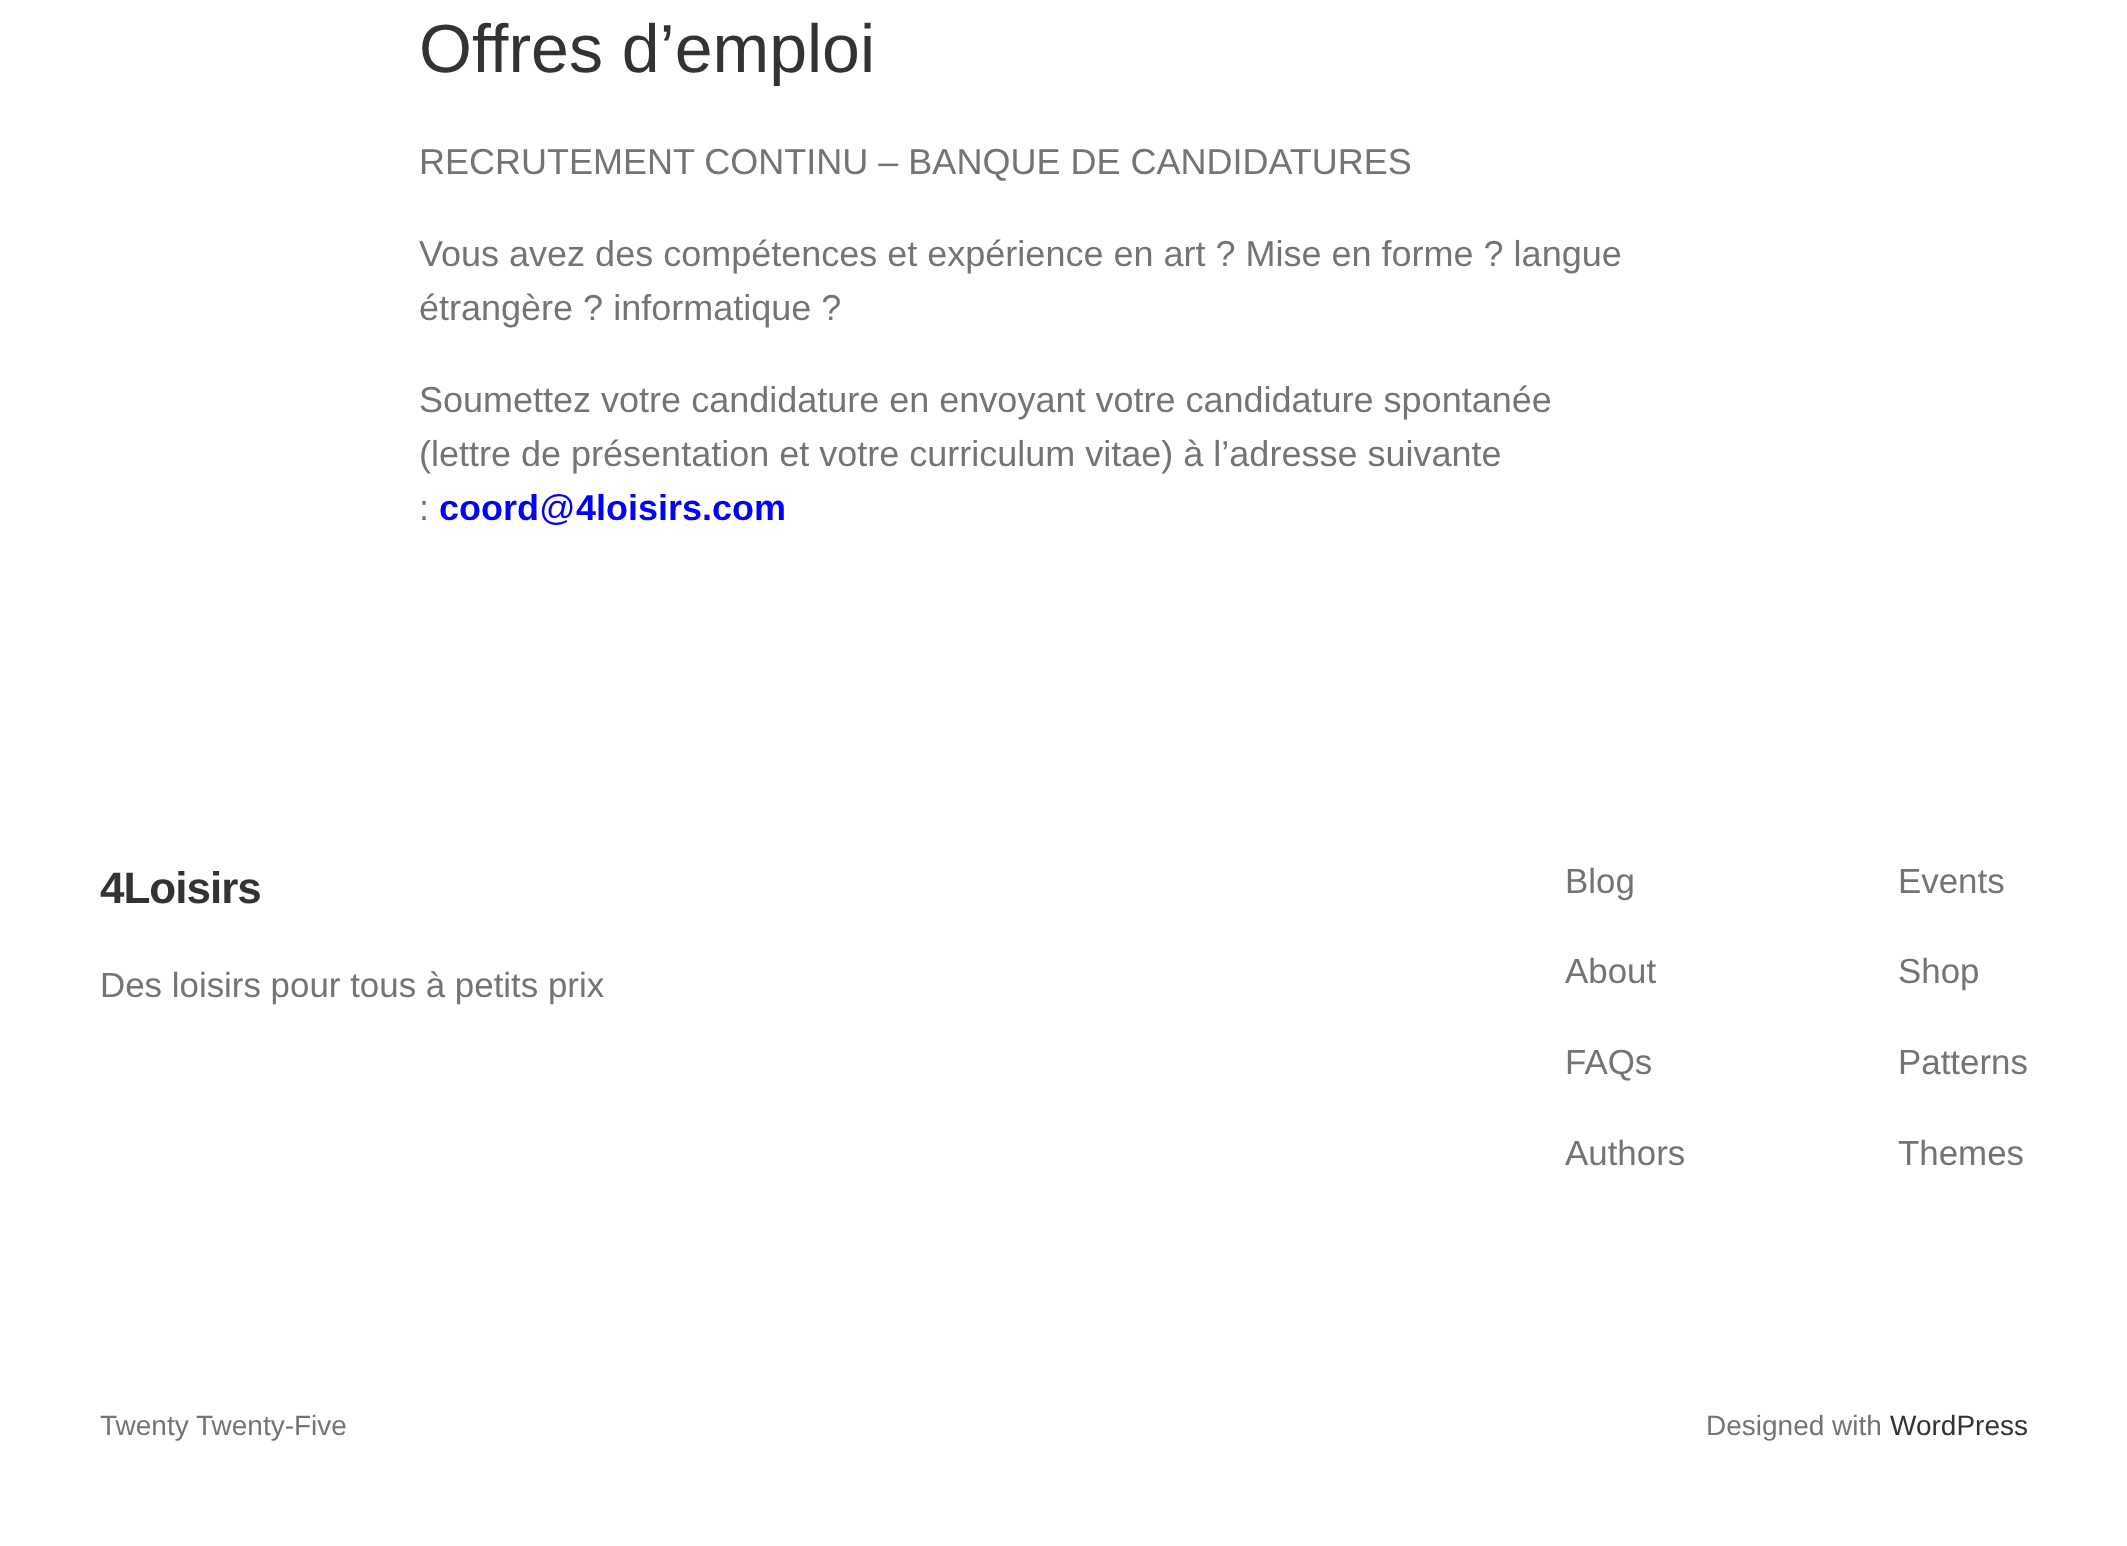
<svg xmlns="http://www.w3.org/2000/svg" width="2127" height="1546" viewBox="0 0 2127 1546">
  <rect width="100%" height="100%" fill="rgb(255,255,255)"/>
  <text x="419" y="72" font-family="Liberation Sans" font-size="68" fill="rgb(51,51,51)">Offres d’emploi</text>
  <g font-family="Liberation Sans" font-size="36" fill="rgb(116,116,116)">
    <text x="419" y="174">RECRUTEMENT CONTINU – BANQUE DE CANDIDATURES</text>
    <text>
      <tspan x="419" y="266">Vous avez des compétences et expérience en art ? Mise en forme ? langue</tspan>
      <tspan x="419" y="320">étrangère ? informatique ?</tspan>
    </text>
    <text>
      <tspan x="419" y="412">Soumettez votre candidature en envoyant votre candidature spontanée</tspan>
      <tspan x="419" y="466">(lettre de présentation et votre curriculum vitae) à l’adresse suivante</tspan>
      <tspan x="419" y="520">:</tspan>
    </text>
  </g>
  <text x="439" y="520" font-family="Liberation Sans" font-size="36" font-weight="bold" fill="rgb(0,0,255)">coord</text>
  <text x="539" y="520" font-family="Liberation Sans" font-size="36" fill="rgb(0,0,255)">@</text>
  <text x="576" y="520" font-family="Liberation Sans" font-size="36" font-weight="bold" fill="rgb(0,0,255)">4loisirs.com</text>
  <text x="100" y="903" font-family="Liberation Sans" font-size="44" font-weight="bold" letter-spacing="-1" fill="rgb(51,51,51)">4Loisirs</text>
  <g font-family="Liberation Sans" font-size="34.9" fill="rgb(116,116,116)">
    <text x="100" y="997">Des loisirs pour tous à petits prix</text>
    <text x="1565" y="893">Blog</text>
    <text x="1565" y="983">About</text>
    <text x="1565" y="1074">FAQs</text>
    <text x="1565" y="1165">Authors</text>
    <text x="1898" y="893">Events</text>
    <text x="1898" y="983">Shop</text>
    <text x="1898" y="1074">Patterns</text>
    <text x="1898" y="1165">Themes</text>
  </g>
  <g font-family="Liberation Sans" font-size="28" fill="rgb(116,116,116)">
    <text x="100" y="1435">Twenty Twenty-Five</text>
    <text x="1706" y="1435">Designed with</text>
  </g>
  <text x="1890" y="1435" font-family="Liberation Sans" font-size="28" fill="rgb(51,51,51)">WordPress</text>
</svg>
